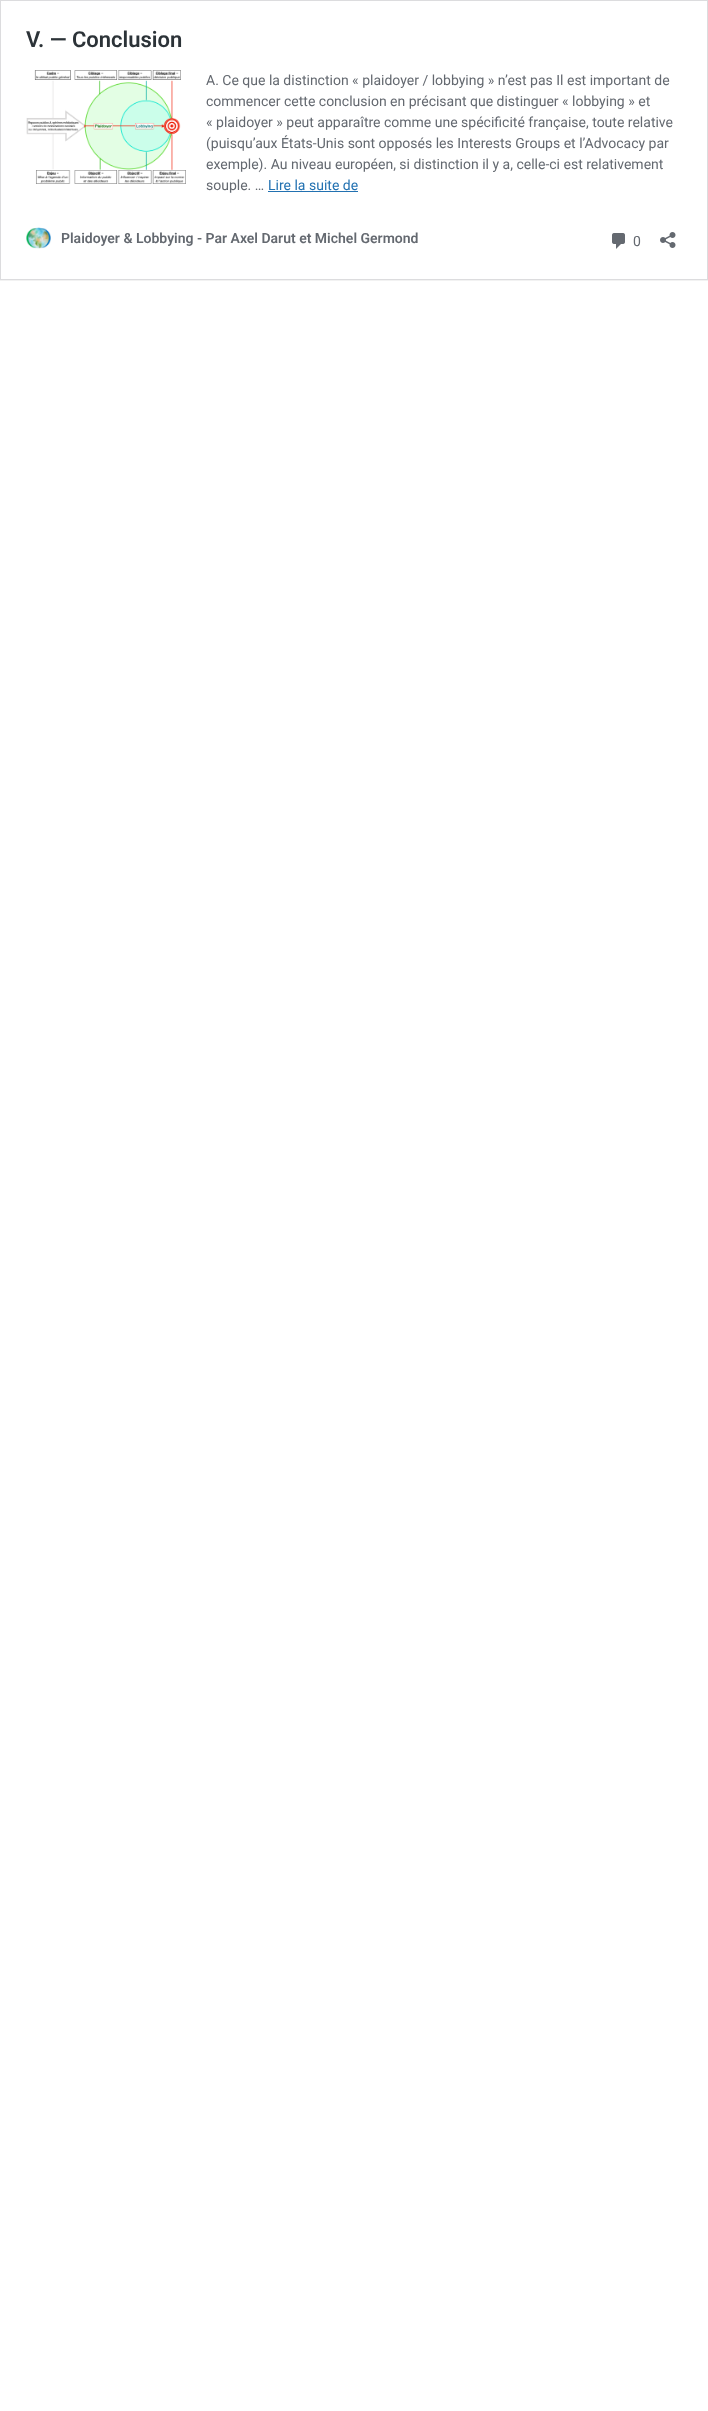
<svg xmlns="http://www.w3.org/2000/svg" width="708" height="2411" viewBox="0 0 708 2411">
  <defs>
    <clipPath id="clip1"><rect x="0" y="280" width="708" height="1"/></clipPath>
  </defs>
  <rect width="100%" height="100%" fill="rgb(255,255,255)"/>
  <g clip-path="url(#clip1)">
    <rect x="0" y="1" width="708" height="280" fill="rgba(0,0,0,0.05)" filter="blur(0.5px)"/>
  </g>
  <rect x="0.5" y="0.5" width="707" height="279" fill="none" stroke="rgb(220,220,222)"/>
  <text x="26" y="47" font-family="Roboto" font-size="22" font-weight="600" fill="rgb(44,51,56)">V. — Conclusion</text>
  <image x="26" y="70" width="160" height="114" href="pic1.png"/>
  <g font-family="Roboto" font-size="14" fill="rgb(100,105,112)">
    <text>
      <tspan x="206" y="85">A. Ce que la distinction « plaidoyer / lobbying » n’est pas Il est important de</tspan>
      <tspan x="206" y="106">commencer cette conclusion en précisant que distinguer « lobbying » et</tspan>
      <tspan x="206" y="127">« plaidoyer » peut apparaître comme une spécificité française, toute relative</tspan>
      <tspan x="206" y="148">(puisqu’aux États-Unis sont opposés les Interests Groups et l’Advocacy par</tspan>
      <tspan x="206" y="169">exemple). Au niveau européen, si distinction il y a, celle-ci est relativement</tspan>
      <tspan x="206" y="190">souple. …</tspan>
    </text>
  </g>
  <text x="268" y="190" font-family="Roboto" font-size="14" fill="rgb(34,113,177)">Lire la suite de</text>
  <rect x="268" y="191" width="90" height="1" fill="rgb(34,113,177)"/>
  <image x="26" y="227" width="25" height="22" href="pic2.png"/>
  <text x="61" y="243" font-family="Roboto" font-size="14" font-weight="600" fill="rgb(100,105,112)">Plaidoyer &amp; Lobbying - Par Axel Darut et Michel Germond</text>
  <image x="612" y="233" width="13" height="16" href="pic3.png"/>
  <text x="633" y="246" font-family="Roboto" font-size="14" fill="rgb(100,105,112)">0</text>
  <image x="660" y="232" width="16" height="16" href="pic4.png"/>
</svg>
